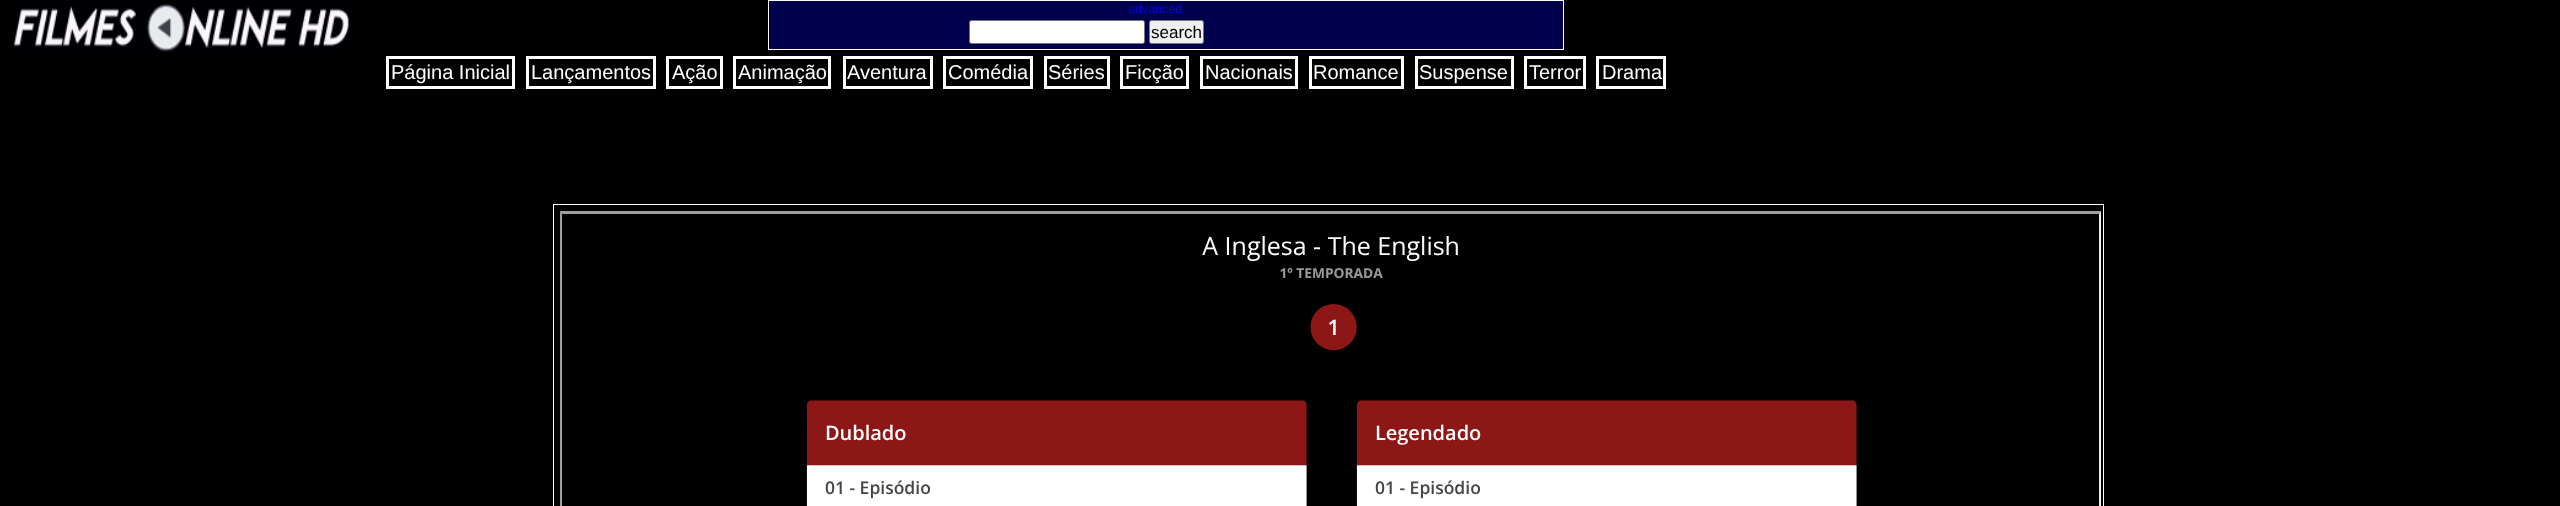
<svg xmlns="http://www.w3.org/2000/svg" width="2560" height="506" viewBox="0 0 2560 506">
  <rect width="100%" height="100%" fill="rgb(0,0,0)"/>
  <image x="14" y="3" width="335" height="49" href="pic1.png"/>
  <rect x="768.5" y="0.5" width="795" height="49" fill="rgb(0,0,77)" stroke="rgb(255,255,255)"/>
  <text x="1128" y="13" font-family="Liberation Sans" font-size="12.5" fill="rgb(0,0,238)">advanced</text>
  <rect x="969.5" y="20.5" width="175" height="23" rx="2" fill="rgb(255,255,255)" stroke="rgb(118,118,118)"/>
  <rect x="1149.5" y="20.5" width="54" height="23" rx="2" fill="rgb(239,239,239)" stroke="rgb(118,118,118)"/>
  <text x="1151" y="38" font-family="Liberation Sans" font-size="17" fill="rgb(0,0,0)">search</text>
  <rect x="387.5" y="57.5" width="126" height="30" fill="none" stroke="rgb(255,255,255)" stroke-width="3"/>
  <text x="391" y="79" font-family="Liberation Sans" font-size="20" fill="rgb(255,255,255)">Página Inicial</text>
  <rect x="527.5" y="57.5" width="127" height="30" fill="none" stroke="rgb(255,255,255)" stroke-width="3"/>
  <text x="531" y="79" font-family="Liberation Sans" font-size="20" fill="rgb(255,255,255)">Lançamentos</text>
  <rect x="667.5" y="57.5" width="54" height="30" fill="none" stroke="rgb(255,255,255)" stroke-width="3"/>
  <text x="672" y="79" font-family="Liberation Sans" font-size="20" fill="rgb(255,255,255)">Ação</text>
  <rect x="734.5" y="57.5" width="95" height="30" fill="none" stroke="rgb(255,255,255)" stroke-width="3"/>
  <text x="738" y="79" font-family="Liberation Sans" font-size="20" fill="rgb(255,255,255)">Animação</text>
  <rect x="844.5" y="57.5" width="87" height="30" fill="none" stroke="rgb(255,255,255)" stroke-width="3"/>
  <text x="847" y="79" font-family="Liberation Sans" font-size="20" fill="rgb(255,255,255)">Aventura</text>
  <rect x="944.5" y="57.5" width="87" height="30" fill="none" stroke="rgb(255,255,255)" stroke-width="3"/>
  <text x="948" y="79" font-family="Liberation Sans" font-size="20" fill="rgb(255,255,255)">Comédia</text>
  <rect x="1045.5" y="57.5" width="63" height="30" fill="none" stroke="rgb(255,255,255)" stroke-width="3"/>
  <text x="1048" y="79" font-family="Liberation Sans" font-size="20" fill="rgb(255,255,255)">Séries</text>
  <rect x="1121.5" y="57.5" width="66" height="30" fill="none" stroke="rgb(255,255,255)" stroke-width="3"/>
  <text x="1125" y="79" font-family="Liberation Sans" font-size="20" fill="rgb(255,255,255)">Ficção</text>
  <rect x="1201.5" y="57.5" width="95" height="30" fill="none" stroke="rgb(255,255,255)" stroke-width="3"/>
  <text x="1205" y="79" font-family="Liberation Sans" font-size="20" fill="rgb(255,255,255)">Nacionais</text>
  <rect x="1310.5" y="57.5" width="92" height="30" fill="none" stroke="rgb(255,255,255)" stroke-width="3"/>
  <text x="1313" y="79" font-family="Liberation Sans" font-size="20" fill="rgb(255,255,255)">Romance</text>
  <rect x="1416.5" y="57.5" width="96" height="30" fill="none" stroke="rgb(255,255,255)" stroke-width="3"/>
  <text x="1419" y="79" font-family="Liberation Sans" font-size="20" fill="rgb(255,255,255)">Suspense</text>
  <rect x="1525.5" y="57.5" width="59" height="30" fill="none" stroke="rgb(255,255,255)" stroke-width="3"/>
  <text x="1529" y="79" font-family="Liberation Sans" font-size="20" fill="rgb(255,255,255)">Terror</text>
  <rect x="1597.5" y="57.5" width="67" height="30" fill="none" stroke="rgb(255,255,255)" stroke-width="3"/>
  <text x="1602" y="79" font-family="Liberation Sans" font-size="20" fill="rgb(255,255,255)">Drama</text>
  <rect x="553.5" y="204.5" width="1550" height="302" fill="none" stroke="rgb(255,255,255)"/>
  <path d="M560 211H2101L2099 214H562Z" fill="rgb(159,159,159)"/>
  <path d="M560 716V211L562 214V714Z" fill="rgb(159,159,159)"/>
  <image x="806" y="236" width="1051" height="270" href="pic2.png"/>
  <path d="M2101 211V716L2099 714V214Z" fill="rgb(238,238,238)"/>
</svg>
